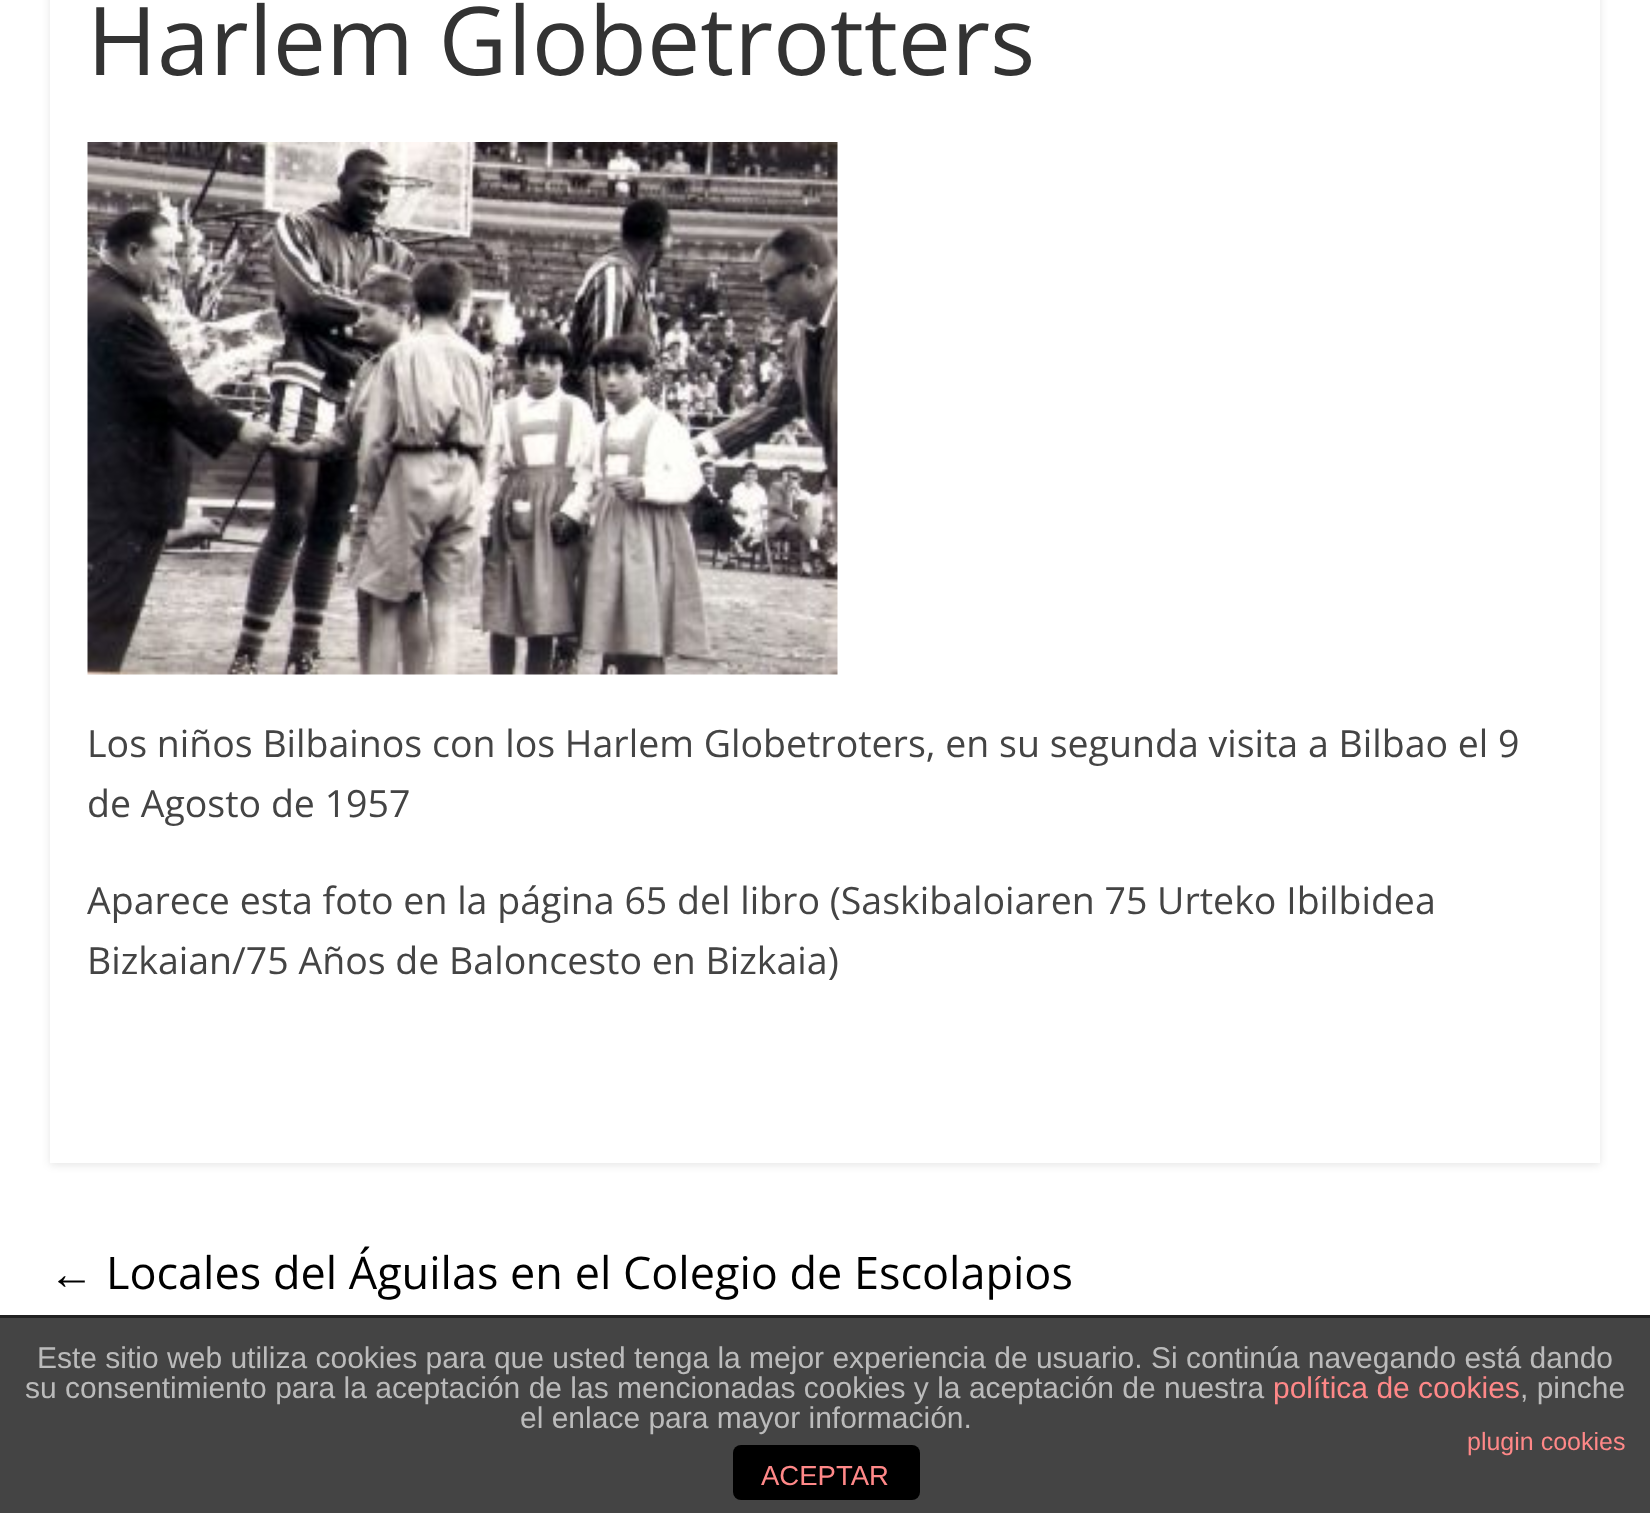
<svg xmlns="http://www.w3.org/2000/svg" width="1650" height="1513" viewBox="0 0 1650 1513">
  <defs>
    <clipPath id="clip1"><path d="M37 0H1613V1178H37ZM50-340H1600V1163H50Z" clip-rule="evenodd"/></clipPath>
  </defs>
  <rect width="100%" height="100%" fill="rgb(255,255,255)"/>
  <g clip-path="url(#clip1)">
    <rect x="50" y="-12" width="1550" height="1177" fill="rgba(0,0,0,0.1)" filter="blur(4px)"/>
  </g>
  <text x="87" y="75" font-family="Open Sans" font-size="95" fill="rgb(51,51,51)">Harlem Globetrotters</text>
  <image x="87" y="142" width="751" height="533" href="pic1.png"/>
  <g font-family="Open Sans" font-size="37.5" fill="rgb(68,68,68)">
    <text>
      <tspan x="87" y="757">Los niños Bilbainos con los Harlem Globetroters, en su segunda visita a Bilbao el 9</tspan>
      <tspan x="87" y="817">de Agosto de 1957</tspan>
    </text>
    <text>
      <tspan x="87" y="914">Aparece esta foto en la página 65 del libro (Saskibaloiaren 75 Urteko Ibilbidea</tspan>
      <tspan x="87" y="974">Bizkaian/75 Años de Baloncesto en Bizkaia)</tspan>
    </text>
  </g>
  <text x="49" y="1289" font-family="Liberation Serif" font-size="45" fill="rgb(0,0,0)">←</text>
  <text x="106" y="1289" font-family="Open Sans" font-size="45" fill="rgb(0,0,0)">Locales del Águilas en el Colegio de Escolapios</text>
  <rect x="0" y="1318" width="1650" height="195" fill="rgb(68,68,68)"/>
  <rect x="0" y="1315" width="1650" height="3" fill="rgb(34,34,34)"/>
  <g font-family="Liberation Sans" font-size="30" fill="rgb(187,187,187)">
    <text x="37" y="1368">Este sitio web utiliza cookies para que usted tenga la mejor experiencia de usuario. Si continúa navegando está dando</text>
    <text x="25" y="1398">su consentimiento para la aceptación de las mencionadas cookies y la aceptación de nuestra</text>
  </g>
  <text x="1273" y="1398" font-family="Liberation Sans" font-size="30" fill="rgb(255,136,136)">política de cookies</text>
  <g font-family="Liberation Sans" font-size="30" fill="rgb(187,187,187)">
    <text x="1520" y="1398">, pinche</text>
    <text x="520" y="1428">el enlace para mayor información.</text>
  </g>
  <text x="1467" y="1450" font-family="Liberation Sans" font-size="25" fill="rgb(255,136,136)">plugin cookies</text>
  <rect x="733" y="1445" width="187" height="55" rx="8" fill="rgb(0,0,0)"/>
  <text x="761" y="1485" font-family="Liberation Sans" font-size="27.5" fill="rgb(255,136,136)">ACEPTAR</text>
</svg>
